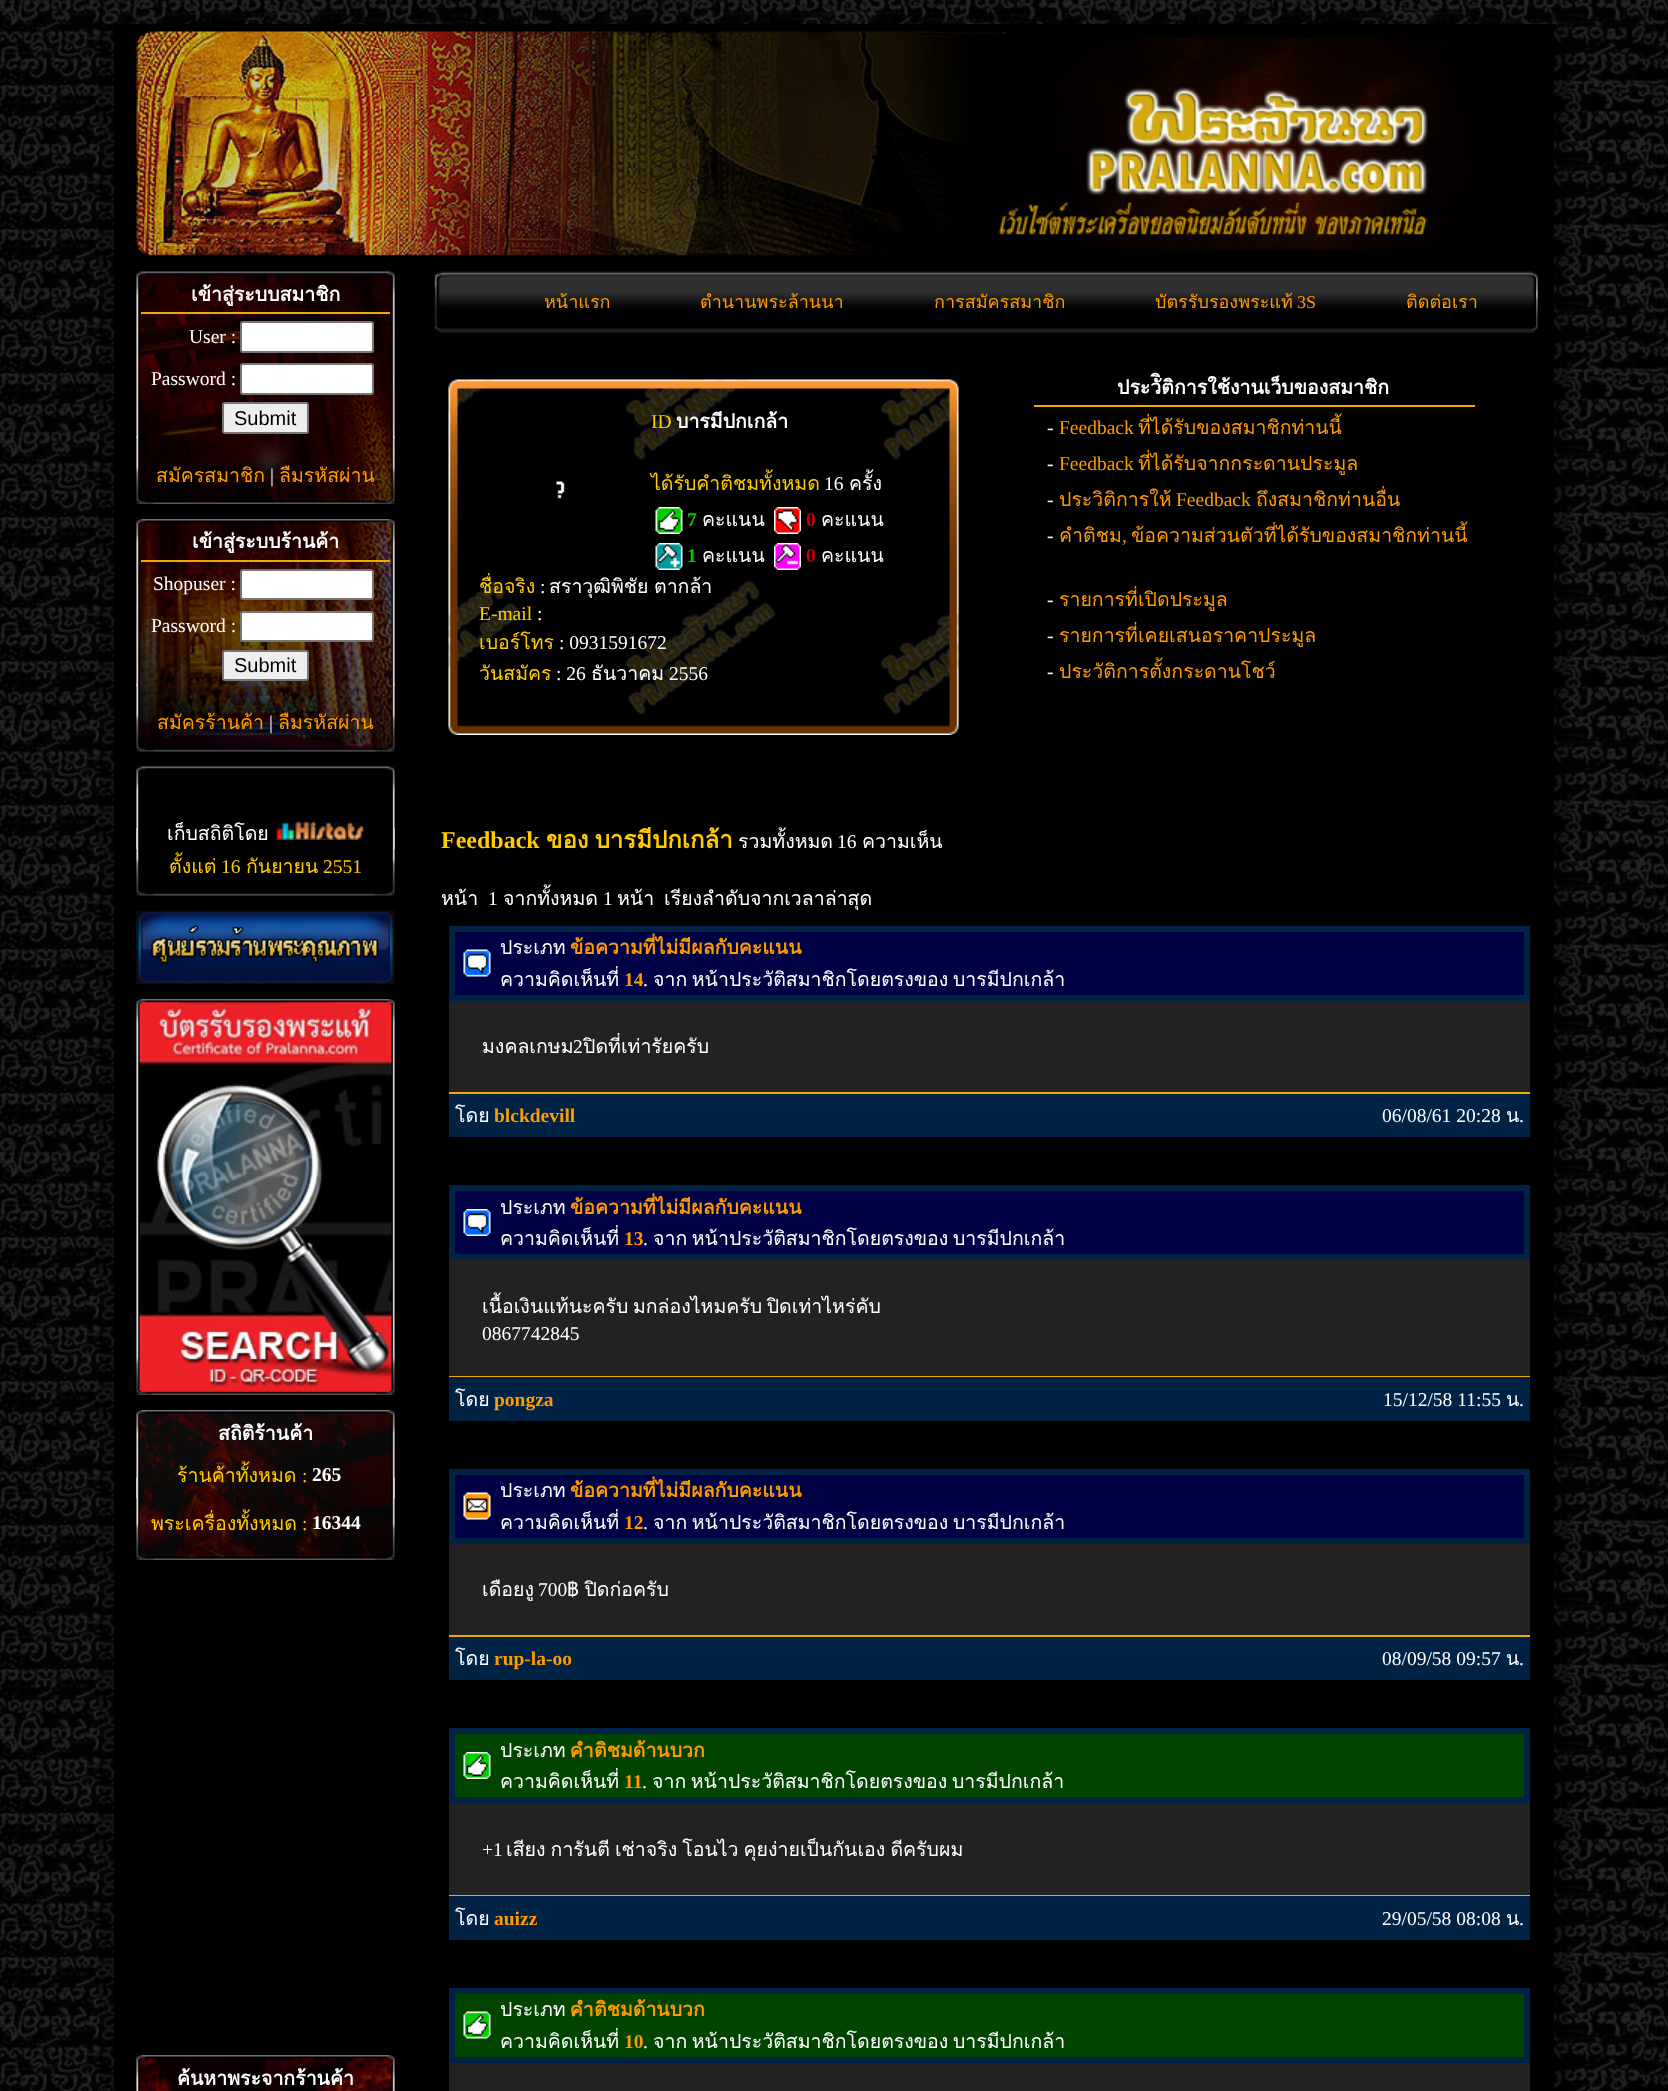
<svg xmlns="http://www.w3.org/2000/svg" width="1668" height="2091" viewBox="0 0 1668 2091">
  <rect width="100%" height="100%" fill="rgb(255,255,255)"/>
  <image x="0" y="0" width="1668" height="2091" href="pic1.png"/>
  <rect x="99" y="24" width="1470" height="2067" fill="rgba(0,0,0,0.3)"/>
  <rect x="114" y="24" width="1440" height="2067" fill="rgb(0,0,0)"/>
  <image x="136" y="31" width="1332" height="226" href="pic2.png"/>
  <image x="136" y="271" width="259" height="233" href="pic3.png"/>
  <image x="136" y="271" width="259" height="167" href="pic4.png"/>
  <rect x="141" y="312" width="249" height="2" fill="rgb(238,170,0)"/>
  <text x="191" y="301" font-family="Loma" font-size="19.5" font-weight="bold" fill="rgb(255,255,255)">เข้าสู่ระบบสมาชิก</text>
  <text x="189" y="343" font-family="Liberation Serif" font-size="19.5" fill="rgb(255,255,255)">User :</text>
  <rect x="241" y="322" width="132" height="30" rx="2" fill="rgb(255,255,255)" stroke="rgb(118,118,118)" stroke-width="2"/>
  <text x="151" y="385" font-family="Liberation Serif" font-size="19.5" fill="rgb(255,255,255)">Password :</text>
  <rect x="241" y="364" width="132" height="30" rx="2" fill="rgb(255,255,255)" stroke="rgb(118,118,118)" stroke-width="2"/>
  <rect x="223" y="403" width="85" height="30" rx="2" fill="rgb(239,239,239)" stroke="rgb(118,118,118)" stroke-width="2"/>
  <text x="234" y="425" font-family="Liberation Sans" font-size="20" fill="rgb(0,0,0)">Submit</text>
  <image x="136" y="436" width="259" height="68" href="pic5.png"/>
  <text x="156" y="482" font-family="Loma" font-size="19.5" fill="rgb(255,154,0)">สมัครสมาชิก</text>
  <text x="270" y="482" font-family="Liberation Serif" font-size="19.5" fill="rgb(255,255,255)">|</text>
  <text x="279" y="482" font-family="Loma" font-size="19.5" fill="rgb(255,154,0)">ลืมรหัสผ่าน</text>
  <image x="136" y="519" width="259" height="233" href="pic6.png"/>
  <image x="136" y="519" width="259" height="167" href="pic7.png"/>
  <rect x="141" y="560" width="249" height="2" fill="rgb(238,170,0)"/>
  <text x="192" y="548" font-family="Loma" font-size="19.5" font-weight="bold" fill="rgb(255,255,255)">เข้าสู่ระบบร้านค้า</text>
  <text x="153" y="590" font-family="Liberation Serif" font-size="19.5" fill="rgb(255,255,255)">Shopuser :</text>
  <rect x="241" y="570" width="132" height="29" rx="2" fill="rgb(255,255,255)" stroke="rgb(118,118,118)" stroke-width="2"/>
  <text x="151" y="632" font-family="Liberation Serif" font-size="19.5" fill="rgb(255,255,255)">Password :</text>
  <rect x="241" y="612" width="132" height="29" rx="2" fill="rgb(255,255,255)" stroke="rgb(118,118,118)" stroke-width="2"/>
  <rect x="223" y="651" width="85" height="29" rx="2" fill="rgb(239,239,239)" stroke="rgb(118,118,118)" stroke-width="2"/>
  <text x="234" y="672" font-family="Liberation Sans" font-size="20" fill="rgb(0,0,0)">Submit</text>
  <image x="136" y="684" width="259" height="68" href="pic8.png"/>
  <text x="157" y="729" font-family="Loma" font-size="19.5" fill="rgb(255,154,0)">สมัครร้านค้า</text>
  <text x="269" y="729" font-family="Liberation Serif" font-size="19.5" fill="rgb(255,255,255)">|</text>
  <text x="278" y="729" font-family="Loma" font-size="19.5" fill="rgb(255,154,0)">ลืมรหัสผ่าน</text>
  <image x="136" y="766" width="259" height="83" href="pic9.png"/>
  <image x="136" y="828" width="259" height="68" href="pic11.png"/>
  <text x="167" y="840" font-family="Loma" font-size="19.5" fill="rgb(255,255,255)">เก็บสถิติโดย</text>
  <image x="275" y="821" width="89" height="19" href="pic10.png"/>
  <text x="169" y="873" font-family="Loma" font-size="19.5" fill="rgb(255,204,0)">ตั้งแต่</text>
  <text x="221" y="873" font-family="Liberation Serif" font-size="19.5" fill="rgb(255,204,0)">16</text>
  <text x="246" y="873" font-family="Loma" font-size="19.5" fill="rgb(255,204,0)">กันยายน</text>
  <text x="323" y="873" font-family="Liberation Serif" font-size="19.5" fill="rgb(255,204,0)">2551</text>
  <image x="136" y="910" width="259" height="74" href="pic12.png"/>
  <image x="136" y="911" width="28" height="72" href="pic13.png"/>
  <image x="145" y="925" width="241" height="44" href="pic14.png"/>
  <image x="136" y="999" width="259" height="396" href="pic15.png"/>
  <image x="136" y="1410" width="259" height="150" href="pic16.png"/>
  <image x="136" y="1410" width="259" height="89" href="pic17.png"/>
  <text x="218" y="1440" font-family="Loma" font-size="19.5" font-weight="bold" fill="rgb(255,255,255)">สถิติร้านค้า</text>
  <image x="136" y="1477" width="259" height="83" href="pic18.png"/>
  <text x="177" y="1482" font-family="Loma" font-size="19.5" fill="rgb(255,204,0)">ร้านค้าทั้งหมด</text>
  <text x="302" y="1482" font-family="Liberation Serif" font-size="19.5" fill="rgb(255,204,0)">:</text>
  <text x="312" y="1481" font-family="Liberation Serif" font-size="19.5" font-weight="bold" fill="rgb(255,255,255)">265</text>
  <text x="151" y="1530" font-family="Loma" font-size="19.5" fill="rgb(255,204,0)">พระเครื่องทั้งหมด</text>
  <text x="302" y="1530" font-family="Liberation Serif" font-size="19.5" fill="rgb(255,204,0)">:</text>
  <text x="312" y="1529" font-family="Liberation Serif" font-size="19.5" font-weight="bold" fill="rgb(255,255,255)">16344</text>
  <image x="136" y="2055" width="259" height="36" href="pic19.png"/>
  <image x="136" y="2055" width="259" height="36" href="pic20.png"/>
  <text x="177" y="2085" font-family="Loma" font-size="19.5" font-weight="bold" fill="rgb(255,255,255)">ค้นหาพระจากร้านค้า</text>
  <image x="434" y="271" width="16" height="62" href="pic21.png"/>
  <image x="450" y="271" width="1074" height="62" href="pic22.png"/>
  <g font-family="Loma" font-size="18" fill="rgb(255,154,0)">
    <text x="544" y="308">หน้าแรก</text>
    <text x="700" y="308">ตำนานพระล้านนา</text>
    <text x="934" y="308">การสมัครสมาชิก</text>
    <text x="1155" y="308">บัตรรับรองพระแท้</text>
  </g>
  <text x="1297" y="308" font-family="Liberation Serif" font-size="18" fill="rgb(255,154,0)">3S</text>
  <text x="1406" y="308" font-family="Loma" font-size="18" fill="rgb(255,154,0)">ติดต่อเรา</text>
  <image x="1524" y="271" width="14" height="62" href="pic23.png"/>
  <image x="448" y="379" width="511" height="341" href="pic24.png"/>
  <image x="556" y="414" width="79" height="85" href="pic25.png"/>
  <text x="651" y="428" font-family="Liberation Serif" font-size="19.5" fill="rgb(255,204,0)">ID</text>
  <text x="676" y="428" font-family="Loma" font-size="19.5" font-weight="bold" fill="rgb(255,255,255)">บารมีปกเกล้า</text>
  <text x="651" y="490" font-family="Loma" font-size="19.5" fill="rgb(255,204,0)">ได้รับคำติชมทั้งหมด</text>
  <text x="824" y="490" font-family="Liberation Serif" font-size="19.5" fill="rgb(255,255,255)">16</text>
  <text x="849" y="490" font-family="Loma" font-size="19.5" fill="rgb(255,255,255)">ครั้ง</text>
  <image x="655" y="507" width="28" height="27" href="pic26.png"/>
  <text x="687" y="526" font-family="Liberation Serif" font-size="19.5" font-weight="bold" fill="rgb(0,204,0)">7</text>
  <text x="702" y="526" font-family="Loma" font-size="19.5" fill="rgb(255,255,255)">คะแนน</text>
  <image x="774" y="507" width="27" height="27" href="pic27.png"/>
  <text x="806" y="526" font-family="Liberation Serif" font-size="19.5" font-weight="bold" fill="rgb(204,0,0)">0</text>
  <text x="821" y="526" font-family="Loma" font-size="19.5" fill="rgb(255,255,255)">คะแนน</text>
  <image x="655" y="543" width="28" height="27" href="pic28.png"/>
  <text x="687" y="562" font-family="Liberation Serif" font-size="19.5" font-weight="bold" fill="rgb(0,204,0)">1</text>
  <text x="702" y="562" font-family="Loma" font-size="19.5" fill="rgb(255,255,255)">คะแนน</text>
  <image x="774" y="543" width="27" height="27" href="pic29.png"/>
  <text x="806" y="562" font-family="Liberation Serif" font-size="19.5" font-weight="bold" fill="rgb(204,0,0)">0</text>
  <text x="821" y="562" font-family="Loma" font-size="19.5" fill="rgb(255,255,255)">คะแนน</text>
  <text x="479" y="593" font-family="Loma" font-size="19.5" fill="rgb(255,204,0)">ชื่อจริง</text>
  <text x="540" y="593" font-family="Liberation Serif" font-size="19.5" fill="rgb(255,255,255)">:</text>
  <text x="549" y="593" word-spacing="-1" font-family="Loma" font-size="19.5" fill="rgb(255,255,255)">สราวุฒิพิชัย ตากล้า</text>
  <text x="479" y="620" font-family="Liberation Serif" font-size="19.5" fill="rgb(255,204,0)">E-mail</text>
  <text x="537" y="620" font-family="Liberation Serif" font-size="19.5" fill="rgb(255,255,255)">:</text>
  <text x="479" y="649" font-family="Loma" font-size="19.5" fill="rgb(255,204,0)">เบอร์โทร</text>
  <text x="559" y="649" font-family="Liberation Serif" font-size="19.5" fill="rgb(255,255,255)">: 0931591672</text>
  <text x="479" y="680" font-family="Loma" font-size="19.5" fill="rgb(255,204,0)">วันสมัคร</text>
  <text x="556" y="680" font-family="Liberation Serif" font-size="19.5" fill="rgb(255,255,255)">: 26</text>
  <text x="591" y="680" font-family="Loma" font-size="19.5" fill="rgb(255,255,255)">ธันวาคม</text>
  <text x="669" y="680" font-family="Liberation Serif" font-size="19.5" fill="rgb(255,255,255)">2556</text>
  <image x="448" y="720" width="511" height="15" href="pic30.png"/>
  <rect x="1034" y="405" width="441" height="2" fill="rgb(238,170,0)"/>
  <text x="1117" y="394" font-family="Loma" font-size="19.5" font-weight="bold" fill="rgb(255,255,255)">ประวัิติการใช้งานเว็บของสมาชิก</text>
  <text x="1047" y="434" font-family="Liberation Serif" font-size="19.5" fill="rgb(255,255,255)">-</text>
  <text x="1059" y="434" font-family="Liberation Serif" font-size="19.5" fill="rgb(255,154,0)">Feedback</text>
  <text x="1138" y="434" font-family="Loma" font-size="19.5" fill="rgb(255,154,0)">ที่ได้รับของสมาชิกท่านนี้</text>
  <text x="1047" y="470" font-family="Liberation Serif" font-size="19.5" fill="rgb(255,255,255)">-</text>
  <text x="1059" y="470" font-family="Liberation Serif" font-size="19.5" fill="rgb(255,154,0)">Feedback</text>
  <text x="1138" y="470" font-family="Loma" font-size="19.5" fill="rgb(255,154,0)">ที่ได้รับจากกระดานประมูล</text>
  <text x="1047" y="506" font-family="Liberation Serif" font-size="19.5" fill="rgb(255,255,255)">-</text>
  <text x="1059" y="506" font-family="Loma" font-size="19.5" fill="rgb(255,154,0)">ประวิติการให้</text>
  <text x="1176" y="506" font-family="Liberation Serif" font-size="19.5" fill="rgb(255,154,0)">Feedback</text>
  <text x="1256" y="506" font-family="Loma" font-size="19.5" fill="rgb(255,154,0)">ถึงสมาชิกท่านอื่น</text>
  <text x="1047" y="542" font-family="Liberation Serif" font-size="19.5" fill="rgb(255,255,255)">-</text>
  <text x="1059" y="542" font-family="Loma" font-size="19.5" fill="rgb(255,154,0)">คำติชม</text>
  <text x="1122" y="542" font-family="Liberation Serif" font-size="19.5" fill="rgb(255,154,0)">,</text>
  <text x="1131" y="542" font-family="Loma" font-size="19.5" fill="rgb(255,154,0)">ข้อความส่วนตัวที่ได้รับของสมาชิกท่านนี้</text>
  <text x="1047" y="606" font-family="Liberation Serif" font-size="19.5" fill="rgb(255,255,255)">-</text>
  <text x="1059" y="606" font-family="Loma" font-size="19.5" fill="rgb(255,154,0)">รายการที่เปิดประมูล</text>
  <text x="1047" y="642" font-family="Liberation Serif" font-size="19.5" fill="rgb(255,255,255)">-</text>
  <text x="1059" y="642" font-family="Loma" font-size="19.5" fill="rgb(255,154,0)">รายการที่เคยเสนอราคาประมูล</text>
  <text x="1047" y="678" font-family="Liberation Serif" font-size="19.5" fill="rgb(255,255,255)">-</text>
  <text x="1059" y="678" font-family="Loma" font-size="19.5" fill="rgb(255,154,0)">ประวัติการตั้งกระดานโชว์</text>
  <text x="441" y="848" font-family="Liberation Serif" font-size="24" font-weight="bold" fill="rgb(255,204,0)">Feedback</text>
  <text x="546" y="848" word-spacing="-2" font-family="Loma" font-size="24" font-weight="bold" fill="rgb(255,204,0)">ของ บารมีปกเกล้า</text>
  <text x="738" y="848" font-family="Loma" font-size="19.5" fill="rgb(255,255,255)">รวมทั้งหมด</text>
  <text x="837" y="848" font-family="Liberation Serif" font-size="19.5" fill="rgb(255,255,255)">16</text>
  <g font-family="Loma" font-size="19.5" fill="rgb(255,255,255)">
    <text x="862" y="848">ความเห็น</text>
    <text x="441" y="905">หน้า</text>
  </g>
  <text x="488" y="905" font-family="Liberation Serif" font-size="19.5" fill="rgb(255,255,255)">1</text>
  <text x="503" y="905" font-family="Loma" font-size="19.5" fill="rgb(255,255,255)">จากทั้งหมด</text>
  <text x="603" y="905" font-family="Liberation Serif" font-size="19.5" fill="rgb(255,255,255)">1</text>
  <g font-family="Loma" font-size="19.5" fill="rgb(255,255,255)">
    <text x="617" y="905">หน้า</text>
    <text x="664" y="905">เรียงลำดับจากเวลาล่าสุด</text>
  </g>
  <rect x="449" y="1001" width="1081" height="91" fill="rgb(34,34,34)"/>
  <rect x="449" y="926" width="1081" height="75" fill="rgb(0,34,68)"/>
  <rect x="455" y="932" width="1069" height="63" fill="rgb(0,0,68)"/>
  <text x="500" y="954" font-family="Loma" font-size="19.5" fill="rgb(255,255,255)">ประเภท</text>
  <text x="570" y="954" font-family="Loma" font-size="19.5" font-weight="bold" fill="rgb(255,154,0)">ข้อความที่ไม่มีผลกับคะแนน</text>
  <image x="463" y="949" width="28" height="28" href="pic31.png"/>
  <text x="500" y="986" font-family="Loma" font-size="19.5" fill="rgb(255,255,255)">ความคิดเห็นที่</text>
  <text x="624" y="986" font-family="Liberation Serif" font-size="19.5" font-weight="bold" fill="rgb(255,154,0)">14</text>
  <text x="643" y="986" font-family="Liberation Serif" font-size="19.5" fill="rgb(255,255,255)">.</text>
  <text x="653" y="986" word-spacing="-2" font-family="Loma" font-size="19.5" fill="rgb(255,255,255)">จาก หน้าประวัติสมาชิกโดยตรงของ บารมีปกเกล้า</text>
  <rect x="449" y="1092" width="1081" height="2" fill="rgb(238,170,0)"/>
  <text x="573" y="1053" font-family="Liberation Serif" font-size="19.5" fill="rgb(255,255,255)">2</text>
  <g font-family="Loma" font-size="19.5" fill="rgb(255,255,255)">
    <text x="583" y="1053">ปิดที่เท่ารัยครับ</text>
    <text x="482" y="1053">มงคลเกษม</text>
  </g>
  <rect x="449" y="1094" width="1081" height="43" fill="rgb(0,34,68)"/>
  <text x="455" y="1122" font-family="Loma" font-size="19.5" fill="rgb(255,255,255)">โดย</text>
  <text x="494" y="1122" font-family="Liberation Serif" font-size="19.5" font-weight="bold" fill="rgb(255,154,0)">blckdevill</text>
  <text x="1382" y="1122" font-family="Liberation Serif" font-size="19.5" fill="rgb(255,255,255)">06/08/61 20:28</text>
  <text x="1506" y="1122" font-family="Loma" font-size="19.5" fill="rgb(255,255,255)">น</text>
  <text x="1519" y="1122" font-family="Liberation Serif" font-size="19.5" fill="rgb(255,255,255)">.</text>
  <rect x="449" y="1260" width="1081" height="116" fill="rgb(34,34,34)"/>
  <rect x="449" y="1185" width="1081" height="75" fill="rgb(0,34,68)"/>
  <rect x="455" y="1191" width="1069" height="63" fill="rgb(0,0,68)"/>
  <text x="500" y="1214" font-family="Loma" font-size="19.5" fill="rgb(255,255,255)">ประเภท</text>
  <text x="570" y="1214" font-family="Loma" font-size="19.5" font-weight="bold" fill="rgb(255,154,0)">ข้อความที่ไม่มีผลกับคะแนน</text>
  <image x="463" y="1209" width="28" height="27" href="pic32.png"/>
  <text x="500" y="1245" font-family="Loma" font-size="19.5" fill="rgb(255,255,255)">ความคิดเห็นที่</text>
  <text x="624" y="1245" font-family="Liberation Serif" font-size="19.5" font-weight="bold" fill="rgb(255,154,0)">13</text>
  <text x="643" y="1245" font-family="Liberation Serif" font-size="19.5" fill="rgb(255,255,255)">.</text>
  <text x="653" y="1245" word-spacing="-2" font-family="Loma" font-size="19.5" fill="rgb(255,255,255)">จาก หน้าประวัติสมาชิกโดยตรงของ บารมีปกเกล้า</text>
  <rect x="449" y="1376" width="1081" height="1" fill="rgb(238,170,0)"/>
  <text x="482" y="1313" word-spacing="-2" font-family="Loma" font-size="19.5" fill="rgb(255,255,255)">เนื้อเงินแท้นะครับ มกล่องไหมครับ ปิดเท่าไหร่คับ</text>
  <text x="482" y="1340" font-family="Liberation Serif" font-size="19.5" fill="rgb(255,255,255)">0867742845</text>
  <rect x="449" y="1377" width="1081" height="44" fill="rgb(0,34,68)"/>
  <text x="455" y="1406" font-family="Loma" font-size="19.5" fill="rgb(255,255,255)">โดย</text>
  <text x="494" y="1406" font-family="Liberation Serif" font-size="19.5" font-weight="bold" fill="rgb(255,154,0)">pongza</text>
  <text x="1383" y="1406" font-family="Liberation Serif" font-size="19.5" fill="rgb(255,255,255)">15/12/58 11:55</text>
  <text x="1506" y="1406" font-family="Loma" font-size="19.5" fill="rgb(255,255,255)">น</text>
  <text x="1519" y="1406" font-family="Liberation Serif" font-size="19.5" fill="rgb(255,255,255)">.</text>
  <rect x="449" y="1544" width="1081" height="91" fill="rgb(34,34,34)"/>
  <rect x="449" y="1469" width="1081" height="75" fill="rgb(0,34,68)"/>
  <rect x="455" y="1475" width="1069" height="63" fill="rgb(0,0,68)"/>
  <text x="500" y="1497" font-family="Loma" font-size="19.5" fill="rgb(255,255,255)">ประเภท</text>
  <text x="570" y="1497" font-family="Loma" font-size="19.5" font-weight="bold" fill="rgb(255,154,0)">ข้อความที่ไม่มีผลกับคะแนน</text>
  <image x="463" y="1492" width="28" height="28" href="pic33.png"/>
  <text x="500" y="1529" font-family="Loma" font-size="19.5" fill="rgb(255,255,255)">ความคิดเห็นที่</text>
  <text x="624" y="1529" font-family="Liberation Serif" font-size="19.5" font-weight="bold" fill="rgb(255,154,0)">12</text>
  <text x="643" y="1529" font-family="Liberation Serif" font-size="19.5" fill="rgb(255,255,255)">.</text>
  <text x="653" y="1529" word-spacing="-2" font-family="Loma" font-size="19.5" fill="rgb(255,255,255)">จาก หน้าประวัติสมาชิกโดยตรงของ บารมีปกเกล้า</text>
  <rect x="449" y="1635" width="1081" height="2" fill="rgb(238,170,0)"/>
  <text x="482" y="1596" font-family="Loma" font-size="19.5" fill="rgb(255,255,255)">เดือยงู</text>
  <text x="538" y="1596" font-family="Liberation Serif" font-size="19.5" fill="rgb(255,255,255)">700</text>
  <text x="567" y="1596" word-spacing="-1" font-family="Loma" font-size="19.5" fill="rgb(255,255,255)">฿ ปิดก่อครับ</text>
  <rect x="449" y="1637" width="1081" height="43" fill="rgb(0,34,68)"/>
  <text x="455" y="1665" font-family="Loma" font-size="19.5" fill="rgb(255,255,255)">โดย</text>
  <text x="494" y="1665" font-family="Liberation Serif" font-size="19.5" font-weight="bold" fill="rgb(255,154,0)">rup-la-oo</text>
  <text x="1382" y="1665" font-family="Liberation Serif" font-size="19.5" fill="rgb(255,255,255)">08/09/58 09:57</text>
  <text x="1506" y="1665" font-family="Loma" font-size="19.5" fill="rgb(255,255,255)">น</text>
  <text x="1519" y="1665" font-family="Liberation Serif" font-size="19.5" fill="rgb(255,255,255)">.</text>
  <rect x="449" y="1803" width="1081" height="92" fill="rgb(34,34,34)"/>
  <rect x="449" y="1728" width="1081" height="75" fill="rgb(0,34,68)"/>
  <rect x="455" y="1734" width="1069" height="63" fill="rgb(0,68,0)"/>
  <text x="500" y="1757" font-family="Loma" font-size="19.5" fill="rgb(255,255,255)">ประเภท</text>
  <text x="570" y="1757" font-family="Loma" font-size="19.5" font-weight="bold" fill="rgb(255,154,0)">คำติชมด้านบวก</text>
  <image x="463" y="1752" width="28" height="27" href="pic34.png"/>
  <text x="500" y="1788" font-family="Loma" font-size="19.5" fill="rgb(255,255,255)">ความคิดเห็นที่</text>
  <text x="624" y="1788" font-family="Liberation Serif" font-size="19.5" font-weight="bold" fill="rgb(255,154,0)">11</text>
  <text x="642" y="1788" font-family="Liberation Serif" font-size="19.5" fill="rgb(255,255,255)">.</text>
  <text x="652" y="1788" word-spacing="-2" font-family="Loma" font-size="19.5" fill="rgb(255,255,255)">จาก หน้าประวัติสมาชิกโดยตรงของ บารมีปกเกล้า</text>
  <rect x="449" y="1895" width="1081" height="1" fill="rgb(238,170,0)"/>
  <text x="482" y="1856" font-family="Liberation Serif" font-size="19.5" fill="rgb(255,255,255)">+1</text>
  <text x="506" y="1856" word-spacing="-1.5" font-family="Loma" font-size="19.5" fill="rgb(255,255,255)">เสียง การันตี เช่าจริง โอนไว คุยง่ายเป็นกันเอง ดีครับผม</text>
  <rect x="449" y="1896" width="1081" height="44" fill="rgb(0,34,68)"/>
  <text x="455" y="1925" font-family="Loma" font-size="19.5" fill="rgb(255,255,255)">โดย</text>
  <text x="494" y="1925" font-family="Liberation Serif" font-size="19.5" font-weight="bold" fill="rgb(255,154,0)">auizz</text>
  <text x="1382" y="1925" font-family="Liberation Serif" font-size="19.5" fill="rgb(255,255,255)">29/05/58 08:08</text>
  <text x="1506" y="1925" font-family="Loma" font-size="19.5" fill="rgb(255,255,255)">น</text>
  <text x="1519" y="1925" font-family="Liberation Serif" font-size="19.5" fill="rgb(255,255,255)">.</text>
  <rect x="449" y="2063" width="1081" height="28" fill="rgb(34,34,34)"/>
  <rect x="449" y="1988" width="1081" height="75" fill="rgb(0,34,68)"/>
  <rect x="455" y="1994" width="1069" height="63" fill="rgb(0,68,0)"/>
  <text x="500" y="2016" font-family="Loma" font-size="19.5" fill="rgb(255,255,255)">ประเภท</text>
  <text x="570" y="2016" font-family="Loma" font-size="19.5" font-weight="bold" fill="rgb(255,154,0)">คำติชมด้านบวก</text>
  <image x="463" y="2011" width="28" height="28" href="pic35.png"/>
  <text x="500" y="2048" font-family="Loma" font-size="19.5" fill="rgb(255,255,255)">ความคิดเห็นที่</text>
  <text x="624" y="2048" font-family="Liberation Serif" font-size="19.5" font-weight="bold" fill="rgb(255,154,0)">10</text>
  <text x="643" y="2048" font-family="Liberation Serif" font-size="19.5" fill="rgb(255,255,255)">.</text>
  <text x="653" y="2048" word-spacing="-2" font-family="Loma" font-size="19.5" fill="rgb(255,255,255)">จาก หน้าประวัติสมาชิกโดยตรงของ บารมีปกเกล้า</text>
</svg>
